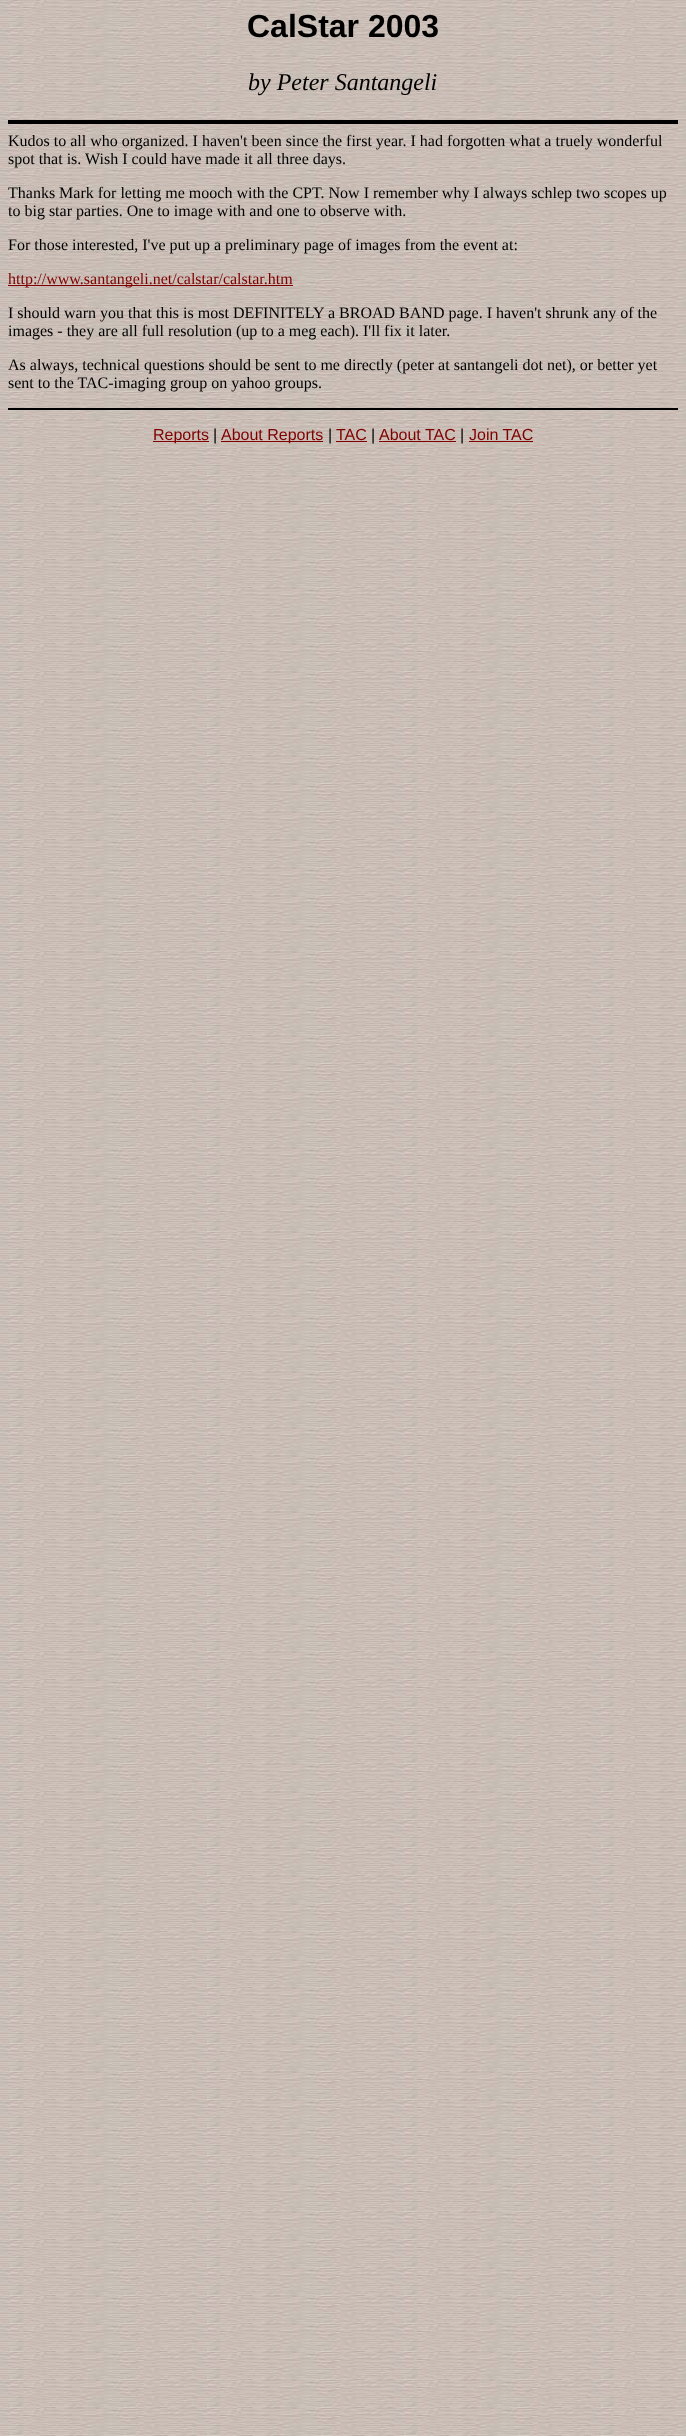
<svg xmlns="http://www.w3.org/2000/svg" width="686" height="2436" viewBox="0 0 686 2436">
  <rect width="100%" height="100%" fill="rgb(255,255,255)"/>
  <image x="0" y="0" width="686" height="2436" href="pic1.png"/>
  <text x="247" y="37" font-family="Liberation Sans" font-size="32" font-weight="bold" fill="rgb(0,0,0)">CalStar 2003</text>
  <text x="248" y="90" font-family="Liberation Serif" font-size="24" font-style="italic" fill="rgb(0,0,0)">by Peter Santangeli</text>
  <rect x="8" y="120" width="670" height="4" fill="rgb(0,0,0)"/>
  <g font-family="Liberation Serif" font-size="16" fill="rgb(0,0,0)">
    <text>
      <tspan x="8" y="146">Kudos to all who organized. I haven't been since the first year. I had forgotten what a truely wonderful</tspan>
      <tspan x="8" y="164">spot that is. Wish I could have made it all three days.</tspan>
    </text>
    <text>
      <tspan x="8" y="198">Thanks Mark for letting me mooch with the CPT. Now I remember why I always schlep two scopes up</tspan>
      <tspan x="8" y="216">to big star parties. One to image with and one to observe with.</tspan>
    </text>
    <text x="8" y="250">For those interested, I've put up a preliminary page of images from the event at:</text>
  </g>
  <rect x="8" y="285" width="285" height="1" fill="rgb(127,0,0)"/>
  <text x="8" y="284" font-family="Liberation Serif" font-size="16" fill="rgb(127,0,0)">http://www.santangeli.net/calstar/calstar.htm</text>
  <g font-family="Liberation Serif" font-size="16" fill="rgb(0,0,0)">
    <text>
      <tspan x="8" y="318">I should warn you that this is most DEFINITELY a BROAD BAND page. I haven't shrunk any of the</tspan>
      <tspan x="8" y="336">images - they are all full resolution (up to a meg each). I'll fix it later.</tspan>
    </text>
    <text>
      <tspan x="8" y="370">As always, technical questions should be sent to me directly (peter at santangeli dot net), or better yet</tspan>
      <tspan x="8" y="388">sent to the TAC-imaging group on yahoo groups.</tspan>
    </text>
  </g>
  <rect x="8" y="408" width="670" height="2" fill="rgb(0,0,0)"/>
  <rect x="153" y="441" width="56" height="1" fill="rgb(127,0,0)"/>
  <text x="153" y="440" font-family="Liberation Sans" font-size="16" fill="rgb(127,0,0)">Reports</text>
  <text x="213" y="440" font-family="Liberation Sans" font-size="16" fill="rgb(0,0,0)">|</text>
  <rect x="221" y="441" width="102" height="1" fill="rgb(127,0,0)"/>
  <text x="221" y="440" font-family="Liberation Sans" font-size="16" fill="rgb(127,0,0)">About Reports</text>
  <text x="328" y="440" font-family="Liberation Sans" font-size="16" fill="rgb(0,0,0)">|</text>
  <text x="336" y="440" font-family="Liberation Sans" font-size="16" fill="rgb(127,0,0)">TAC</text>
  <rect x="336" y="441" width="31" height="1" fill="rgb(127,0,0)"/>
  <text x="371" y="440" font-family="Liberation Sans" font-size="16" fill="rgb(0,0,0)">|</text>
  <text x="379" y="440" font-family="Liberation Sans" font-size="16" fill="rgb(127,0,0)">About TAC</text>
  <rect x="379" y="441" width="77" height="1" fill="rgb(127,0,0)"/>
  <text x="460" y="440" font-family="Liberation Sans" font-size="16" fill="rgb(0,0,0)">|</text>
  <text x="469" y="440" font-family="Liberation Sans" font-size="16" fill="rgb(127,0,0)">Join TAC</text>
  <rect x="469" y="441" width="64" height="1" fill="rgb(127,0,0)"/>
</svg>
